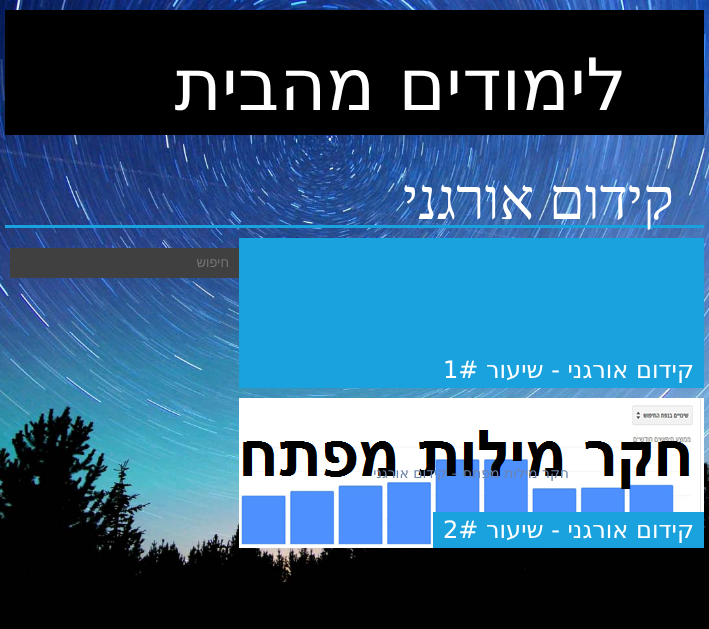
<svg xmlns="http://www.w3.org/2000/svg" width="709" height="629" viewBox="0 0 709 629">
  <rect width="100%" height="100%" fill="rgb(255,255,255)"/>
  <image x="0" y="0" width="709" height="629" href="pic1.png"/>
  <rect x="5" y="10" width="699" height="125" fill="rgb(0,0,0)"/>
  <text x="627" y="110" font-family="DejaVu Sans" font-size="72" direction="rtl" fill="rgb(255,255,255)">לימודים מהבית</text>
  <rect x="5" y="225" width="699" height="3" fill="rgb(25,162,222)"/>
  <text x="674" y="219" font-family="Liberation Serif" font-size="58" direction="rtl" fill="rgb(255,255,255)">קידום אורגני</text>
  <rect x="10" y="248" width="229" height="30" fill="rgb(64,64,64)"/>
  <text x="229" y="267" font-family="Liberation Sans" font-size="13" direction="rtl" fill="rgb(117,117,117)">חיפוש</text>
  <rect x="239" y="238" width="465" height="150" fill="rgb(25,162,222)"/>
  <text x="694" y="378" font-family="DejaVu Sans" font-size="24" direction="rtl" fill="rgb(255,255,255)">קידום אורגני - שיעור</text>
  <text x="443" y="378" font-family="DejaVu Sans" font-size="24" fill="rgb(255,255,255)">1#</text>
  <image x="239" y="398" width="465" height="150" href="pic2.png"/>
  <text x="569" y="478" font-family="DejaVu Sans" font-size="14" direction="rtl" fill="rgb(108,131,170)">חקר מילות מפתח – קידום אורגני</text>
  <rect x="433" y="512" width="271" height="36" fill="rgb(25,162,222)"/>
  <text x="694" y="538" font-family="DejaVu Sans" font-size="24" direction="rtl" fill="rgb(255,255,255)">קידום אורגני - שיעור</text>
  <text x="443" y="538" font-family="DejaVu Sans" font-size="24" fill="rgb(255,255,255)">2#</text>
</svg>
